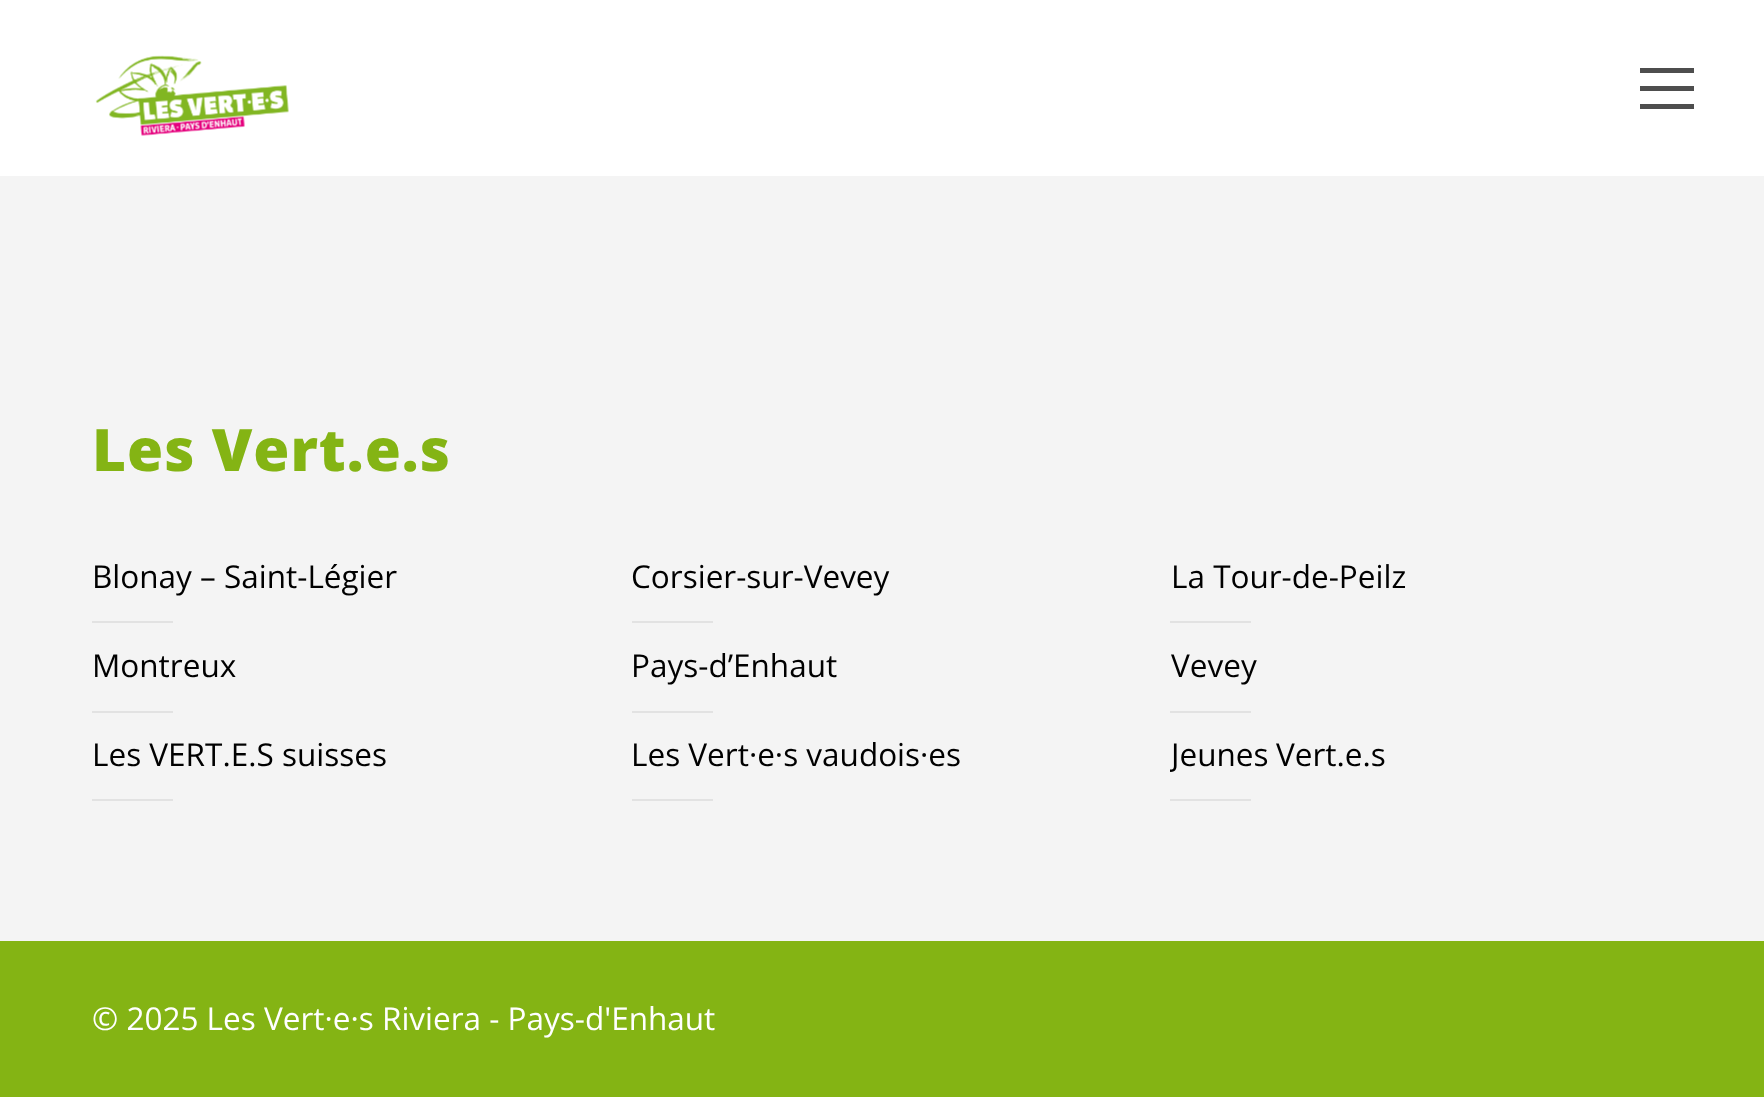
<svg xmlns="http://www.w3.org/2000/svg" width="1764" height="1097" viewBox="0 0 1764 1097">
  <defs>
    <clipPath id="clip1"><rect x="1170" y="713" width="486" height="88"/></clipPath>
  </defs>
  <rect width="100%" height="100%" fill="rgb(244,244,244)"/>
  <rect x="0" y="0" width="1764" height="176" fill="rgb(255,255,255)"/>
  <image x="95" y="55" width="194" height="81" href="pic1.png"/>
  <rect x="1640" y="86" width="54" height="5" fill="rgb(78,78,78)"/>
  <rect x="1640" y="68" width="54" height="5" fill="rgb(78,78,78)"/>
  <rect x="1640" y="104" width="54" height="5" fill="rgb(78,78,78)"/>
  <text x="92" y="471" font-family="Open Sans" font-size="58.5" font-weight="800" letter-spacing="1" fill="rgb(132,180,20)">Les Vert.e.s</text>
  <text x="92" y="588" font-family="Open Sans" font-size="31.5" fill="rgb(0,0,0)">Blonay – Saint-Légier</text>
  <rect x="92" y="621" width="81" height="2" fill="rgb(226,226,226)"/>
  <text x="631" y="588" font-family="Open Sans" font-size="31.5" fill="rgb(0,0,0)">Corsier-sur-Vevey</text>
  <rect x="632" y="621" width="81" height="2" fill="rgb(226,226,226)"/>
  <text x="1171" y="588" font-family="Open Sans" font-size="31.5" fill="rgb(0,0,0)">La Tour-de-Peilz</text>
  <rect x="1170" y="621" width="81" height="2" fill="rgb(226,226,226)"/>
  <text x="92" y="677" font-family="Open Sans" font-size="31.5" fill="rgb(0,0,0)">Montreux</text>
  <rect x="92" y="711" width="81" height="2" fill="rgb(226,226,226)"/>
  <text x="631" y="677" font-family="Open Sans" font-size="31.5" fill="rgb(0,0,0)">Pays-d’Enhaut</text>
  <rect x="632" y="711" width="81" height="2" fill="rgb(226,226,226)"/>
  <text x="1171" y="677" font-family="Open Sans" font-size="31.5" fill="rgb(0,0,0)">Vevey</text>
  <rect x="1170" y="711" width="81" height="2" fill="rgb(226,226,226)"/>
  <text x="92" y="766" font-family="Open Sans" font-size="31.5" fill="rgb(0,0,0)">Les VERT.E.S suisses</text>
  <rect x="92" y="799" width="81" height="2" fill="rgb(226,226,226)"/>
  <text x="631" y="766" font-family="Open Sans" font-size="31.5" fill="rgb(0,0,0)">Les Vert·e·s vaudois·es</text>
  <rect x="632" y="799" width="81" height="2" fill="rgb(226,226,226)"/>
  <g clip-path="url(#clip1)">
    <text x="1171" y="766" font-family="Open Sans" font-size="31.5" fill="rgb(0,0,0)">Jeunes</text>
  </g>
  <text x="1276" y="766" font-family="Open Sans" font-size="31.5" fill="rgb(0,0,0)">Vert.e.s</text>
  <rect x="1170" y="799" width="81" height="2" fill="rgb(226,226,226)"/>
  <rect x="0" y="941" width="1764" height="156" fill="rgb(132,180,20)"/>
  <text x="92" y="1030" font-family="Open Sans" font-size="31.5" fill="rgb(255,255,255)">© 2025 Les Vert·e·s Riviera - Pays-d'Enhaut</text>
</svg>
